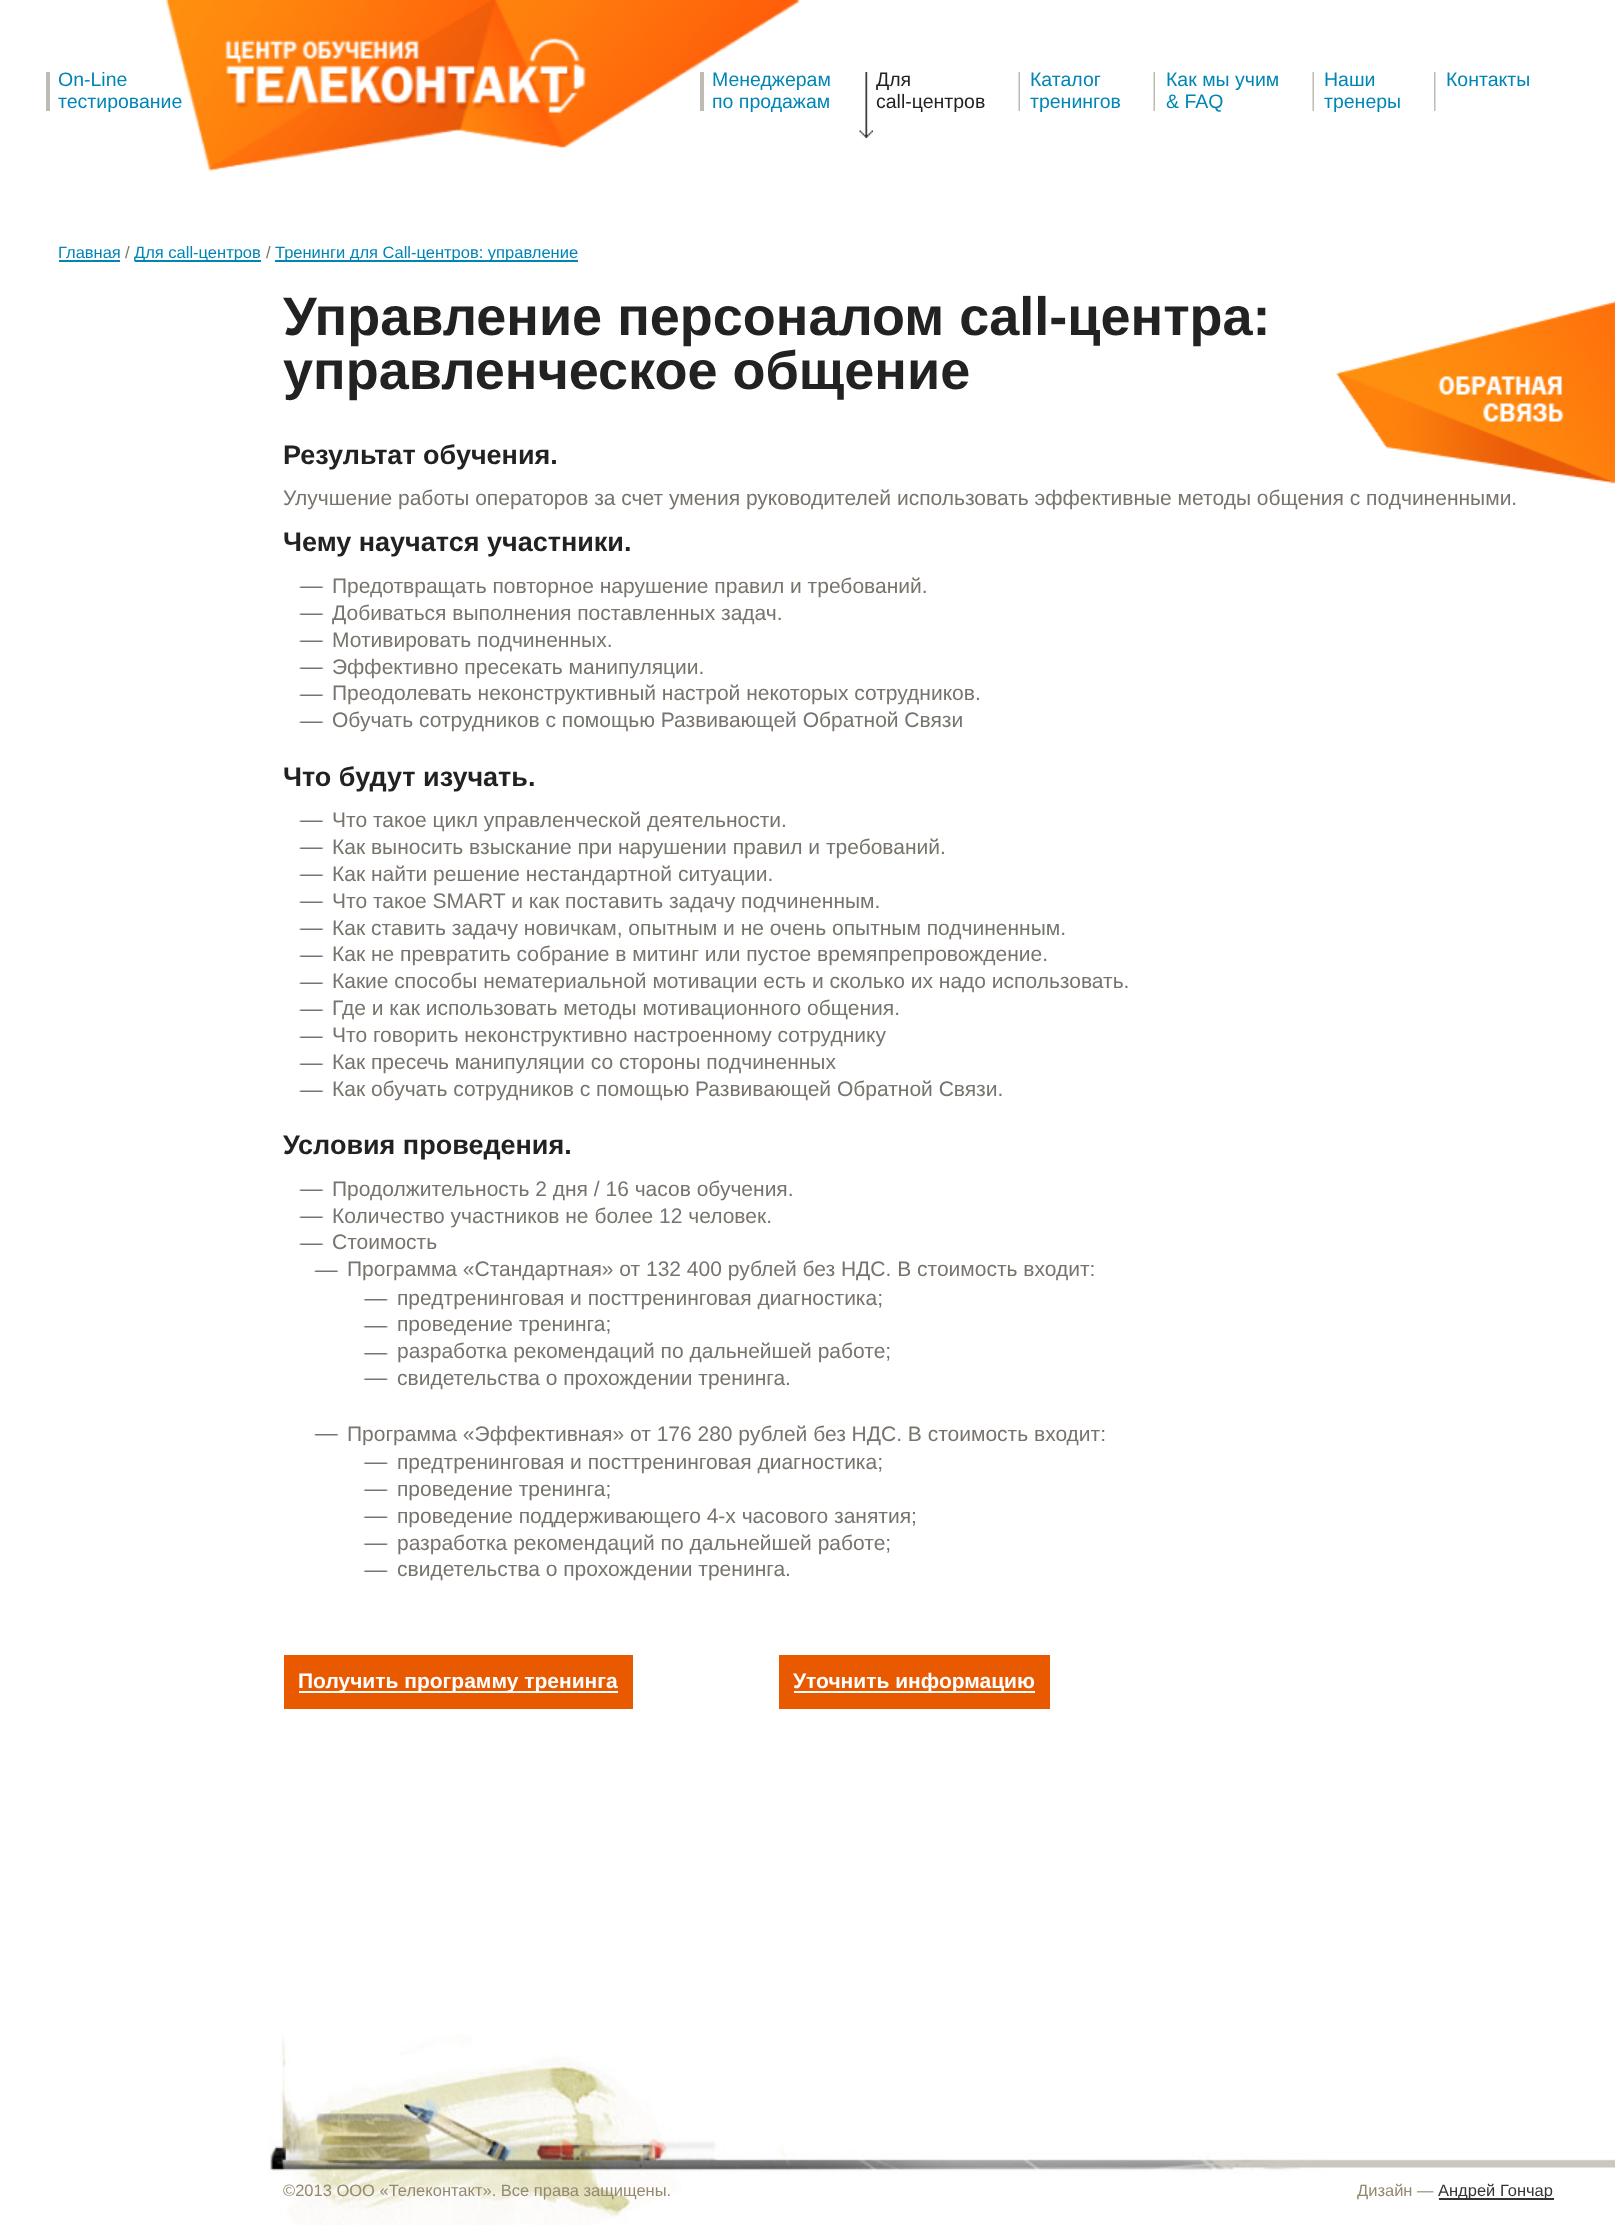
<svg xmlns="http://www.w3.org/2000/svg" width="1615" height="2225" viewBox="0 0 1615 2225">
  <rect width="100%" height="100%" fill="rgb(255,255,255)"/>
  <image x="165" y="0" width="635" height="172" href="pic1.png"/>
  <rect x="46" y="72" width="4" height="39" fill="rgb(190,186,180)"/>
  <g font-family="Liberation Sans" font-size="19.5" fill="rgb(0,133,181)">
    <text>
      <tspan x="58" y="86">On-Line</tspan>
      <tspan x="58" y="108">тестирование</tspan>
    </text>
  </g>
  <rect x="700" y="72" width="4" height="39" fill="rgb(190,186,180)"/>
  <g font-family="Liberation Sans" font-size="19.5" fill="rgb(0,133,181)">
    <text>
      <tspan x="712" y="86">Менеджерам</tspan>
      <tspan x="712" y="108">по продажам</tspan>
    </text>
  </g>
  <image x="859" y="72" width="14" height="66" href="pic2.png"/>
  <g font-family="Liberation Sans" font-size="19.5" fill="rgb(34,34,34)">
    <text>
      <tspan x="876" y="86">Для</tspan>
      <tspan x="876" y="108">call-центров</tspan>
    </text>
  </g>
  <image x="1018" y="72" width="2" height="39" href="pic3.png"/>
  <g font-family="Liberation Sans" font-size="19.5" fill="rgb(0,133,181)">
    <text>
      <tspan x="1030" y="86">Каталог</tspan>
      <tspan x="1030" y="108">тренингов</tspan>
    </text>
  </g>
  <image x="1153" y="72" width="2" height="39" href="pic3.png"/>
  <g font-family="Liberation Sans" font-size="19.5" fill="rgb(0,133,181)">
    <text>
      <tspan x="1166" y="86">Как мы учим</tspan>
      <tspan x="1166" y="108">&amp; FAQ</tspan>
    </text>
  </g>
  <image x="1312" y="72" width="2" height="39" href="pic3.png"/>
  <g font-family="Liberation Sans" font-size="19.5" fill="rgb(0,133,181)">
    <text>
      <tspan x="1324" y="86">Наши</tspan>
      <tspan x="1324" y="108">тренеры</tspan>
    </text>
  </g>
  <image x="1434" y="72" width="2" height="39" href="pic4.png"/>
  <text x="1446" y="86" font-family="Liberation Sans" font-size="19.5" fill="rgb(0,133,181)">Контакты</text>
  <text x="58" y="258" font-family="Liberation Sans" font-size="16.5" fill="rgb(0,133,181)">Главная</text>
  <rect x="59" y="260" width="61" height="2" fill="rgb(0,133,181)"/>
  <text x="125" y="258" font-family="Liberation Sans" font-size="16.5" fill="rgb(120,116,109)">/</text>
  <rect x="135" y="260" width="126" height="2" fill="rgb(0,133,181)"/>
  <text x="134" y="258" font-family="Liberation Sans" font-size="16.5" fill="rgb(0,133,181)">Для call-центров</text>
  <text x="266" y="258" font-family="Liberation Sans" font-size="16.5" fill="rgb(120,116,109)">/</text>
  <rect x="275" y="260" width="303" height="2" fill="rgb(0,133,181)"/>
  <text x="275" y="258" font-family="Liberation Sans" font-size="16.5" fill="rgb(0,133,181)">Тренинги для Call-центров: управление</text>
  <g font-family="Liberation Sans" font-size="54" font-weight="bold" fill="rgb(34,34,34)">
    <text>
      <tspan x="283" y="335">Управление персоналом call-центра:</tspan>
      <tspan x="283" y="389">управленческое общение</tspan>
    </text>
  </g>
  <text x="283" y="464" font-family="Liberation Sans" font-size="27" font-weight="bold" fill="rgb(34,34,34)">Результат обучения.</text>
  <text x="283" y="505" font-family="Liberation Sans" font-size="21" fill="rgb(120,116,109)">Улучшение работы операторов за счет умения руководителей использовать эффективные методы общения с подчиненными.</text>
  <text x="283" y="551" font-family="Liberation Sans" font-size="27" font-weight="bold" fill="rgb(34,34,34)">Чему научатся участники.</text>
  <image x="298" y="586" width="26" height="2" href="pic5.png"/>
  <text x="332" y="593" font-family="Liberation Sans" font-size="21" fill="rgb(120,116,109)">Предотвращать повторное нарушение правил и требований.</text>
  <image x="298" y="613" width="26" height="2" href="pic5.png"/>
  <text x="332" y="620" font-family="Liberation Sans" font-size="21" fill="rgb(120,116,109)">Добиваться выполнения поставленных задач.</text>
  <image x="298" y="640" width="26" height="2" href="pic5.png"/>
  <text x="332" y="647" font-family="Liberation Sans" font-size="21" fill="rgb(120,116,109)">Мотивировать подчиненных.</text>
  <image x="298" y="667" width="26" height="2" href="pic5.png"/>
  <text x="332" y="674" font-family="Liberation Sans" font-size="21" fill="rgb(120,116,109)">Эффективно пресекать манипуляции.</text>
  <image x="298" y="694" width="26" height="2" href="pic5.png"/>
  <text x="332" y="700" font-family="Liberation Sans" font-size="21" fill="rgb(120,116,109)">Преодолевать неконструктивный настрой некоторых сотрудников.</text>
  <image x="298" y="721" width="26" height="2" href="pic5.png"/>
  <text x="332" y="727" font-family="Liberation Sans" font-size="21" fill="rgb(120,116,109)">Обучать сотрудников с помощью Развивающей Обратной Связи</text>
  <text x="283" y="786" font-family="Liberation Sans" font-size="27" font-weight="bold" fill="rgb(34,34,34)">Что будут изучать.</text>
  <image x="298" y="820" width="26" height="2" href="pic5.png"/>
  <text x="332" y="827" font-family="Liberation Sans" font-size="21" fill="rgb(120,116,109)">Что такое цикл управленческой деятельности.</text>
  <image x="298" y="847" width="26" height="2" href="pic5.png"/>
  <text x="332" y="854" font-family="Liberation Sans" font-size="21" fill="rgb(120,116,109)">Как выносить взыскание при нарушении правил и требований.</text>
  <image x="298" y="874" width="26" height="2" href="pic5.png"/>
  <text x="332" y="881" font-family="Liberation Sans" font-size="21" fill="rgb(120,116,109)">Как найти решение нестандартной ситуации.</text>
  <image x="298" y="901" width="26" height="2" href="pic5.png"/>
  <text x="332" y="908" font-family="Liberation Sans" font-size="21" fill="rgb(120,116,109)">Что такое SMART и как поставить задачу подчиненным.</text>
  <image x="298" y="928" width="26" height="2" href="pic5.png"/>
  <text x="332" y="935" font-family="Liberation Sans" font-size="21" fill="rgb(120,116,109)">Как ставить задачу новичкам, опытным и не очень опытным подчиненным.</text>
  <image x="298" y="955" width="26" height="2" href="pic5.png"/>
  <text x="332" y="961" font-family="Liberation Sans" font-size="21" fill="rgb(120,116,109)">Как не превратить собрание в митинг или пустое времяпрепровождение.</text>
  <image x="298" y="982" width="26" height="2" href="pic5.png"/>
  <text x="332" y="988" font-family="Liberation Sans" font-size="21" fill="rgb(120,116,109)">Какие способы нематериальной мотивации есть и сколько их надо использовать.</text>
  <image x="298" y="1009" width="26" height="2" href="pic5.png"/>
  <text x="332" y="1015" font-family="Liberation Sans" font-size="21" fill="rgb(120,116,109)">Где и как использовать методы мотивационного общения.</text>
  <image x="298" y="1036" width="26" height="2" href="pic5.png"/>
  <text x="332" y="1042" font-family="Liberation Sans" font-size="21" fill="rgb(120,116,109)">Что говорить неконструктивно настроенному сотруднику</text>
  <image x="298" y="1063" width="26" height="2" href="pic5.png"/>
  <text x="332" y="1069" font-family="Liberation Sans" font-size="21" fill="rgb(120,116,109)">Как пресечь манипуляции со стороны подчиненных</text>
  <image x="298" y="1090" width="26" height="2" href="pic5.png"/>
  <text x="332" y="1096" font-family="Liberation Sans" font-size="21" fill="rgb(120,116,109)">Как обучать сотрудников с помощью Развивающей Обратной Связи.</text>
  <text x="283" y="1154" font-family="Liberation Sans" font-size="27" font-weight="bold" fill="rgb(34,34,34)">Условия проведения.</text>
  <image x="298" y="1189" width="26" height="2" href="pic5.png"/>
  <text x="332" y="1196" font-family="Liberation Sans" font-size="21" fill="rgb(120,116,109)">Продолжительность 2 дня / 16 часов обучения.</text>
  <image x="298" y="1216" width="26" height="2" href="pic5.png"/>
  <text x="332" y="1223" font-family="Liberation Sans" font-size="21" fill="rgb(120,116,109)">Количество участников не более 12 человек.</text>
  <image x="298" y="1243" width="26" height="2" href="pic5.png"/>
  <text x="332" y="1249" font-family="Liberation Sans" font-size="21" fill="rgb(120,116,109)">Стоимость</text>
  <image x="313" y="1270" width="26" height="2" href="pic5.png"/>
  <text x="347" y="1276" font-family="Liberation Sans" font-size="21" fill="rgb(120,116,109)">Программа «Стандартная» от 132 400 рублей без НДС. В стоимость входит:</text>
  <image x="363" y="1299" width="26" height="2" href="pic6.png"/>
  <text x="397" y="1305" font-family="Liberation Sans" font-size="21" fill="rgb(120,116,109)">предтренинговая и посттренинговая диагностика;</text>
  <image x="363" y="1326" width="26" height="2" href="pic6.png"/>
  <text x="397" y="1331" font-family="Liberation Sans" font-size="21" fill="rgb(120,116,109)">проведение тренинга;</text>
  <image x="363" y="1353" width="26" height="2" href="pic6.png"/>
  <text x="397" y="1358" font-family="Liberation Sans" font-size="21" fill="rgb(120,116,109)">разработка рекомендаций по дальнейшей работе;</text>
  <image x="363" y="1378" width="26" height="2" href="pic7.png"/>
  <text x="397" y="1385" font-family="Liberation Sans" font-size="21" fill="rgb(120,116,109)">свидетельства о прохождении тренинга.</text>
  <image x="313" y="1434" width="26" height="2" href="pic8.png"/>
  <text x="347" y="1441" font-family="Liberation Sans" font-size="21" fill="rgb(120,116,109)">Программа «Эффективная» от 176 280 рублей без НДС. В стоимость входит:</text>
  <image x="363" y="1462" width="26" height="2" href="pic7.png"/>
  <text x="397" y="1469" font-family="Liberation Sans" font-size="21" fill="rgb(120,116,109)">предтренинговая и посттренинговая диагностика;</text>
  <image x="363" y="1489" width="26" height="2" href="pic7.png"/>
  <text x="397" y="1496" font-family="Liberation Sans" font-size="21" fill="rgb(120,116,109)">проведение тренинга;</text>
  <image x="363" y="1516" width="26" height="2" href="pic7.png"/>
  <text x="397" y="1523" font-family="Liberation Sans" font-size="21" fill="rgb(120,116,109)">проведение поддерживающего 4-х часового занятия;</text>
  <image x="363" y="1543" width="26" height="2" href="pic7.png"/>
  <text x="397" y="1550" font-family="Liberation Sans" font-size="21" fill="rgb(120,116,109)">разработка рекомендаций по дальнейшей работе;</text>
  <image x="363" y="1570" width="26" height="2" href="pic7.png"/>
  <text x="397" y="1576" font-family="Liberation Sans" font-size="21" fill="rgb(120,116,109)">свидетельства о прохождении тренинга.</text>
  <rect x="284" y="1655" width="349" height="54" fill="rgb(232,89,0)"/>
  <rect x="299" y="1691" width="319" height="2" fill="rgb(255,255,255)"/>
  <text x="298" y="1688" font-family="Liberation Sans" font-size="21" font-weight="bold" fill="rgb(255,255,255)">Получить программу тренинга</text>
  <rect x="779" y="1655" width="271" height="54" fill="rgb(232,89,0)"/>
  <rect x="794" y="1691" width="241" height="2" fill="rgb(255,255,255)"/>
  <text x="793" y="1688" font-family="Liberation Sans" font-size="21" font-weight="bold" fill="rgb(255,255,255)">Уточнить информацию</text>
  <image x="1336" y="301" width="279" height="183" href="pic9.png"/>
  <image x="268" y="2034" width="1347" height="191" href="pic10.png"/>
  <g font-family="Liberation Sans" font-size="16.5" fill="rgb(148,136,113)">
    <text x="283" y="2196">©2013 ООО «Телеконтакт». Все права защищены.</text>
    <text x="1357" y="2196">Дизайн —</text>
  </g>
  <rect x="1439" y="2198" width="115" height="2" fill="rgb(51,51,51)"/>
  <text x="1438" y="2196" font-family="Liberation Sans" font-size="16.5" fill="rgb(51,51,51)">Андрей Гончар</text>
</svg>
